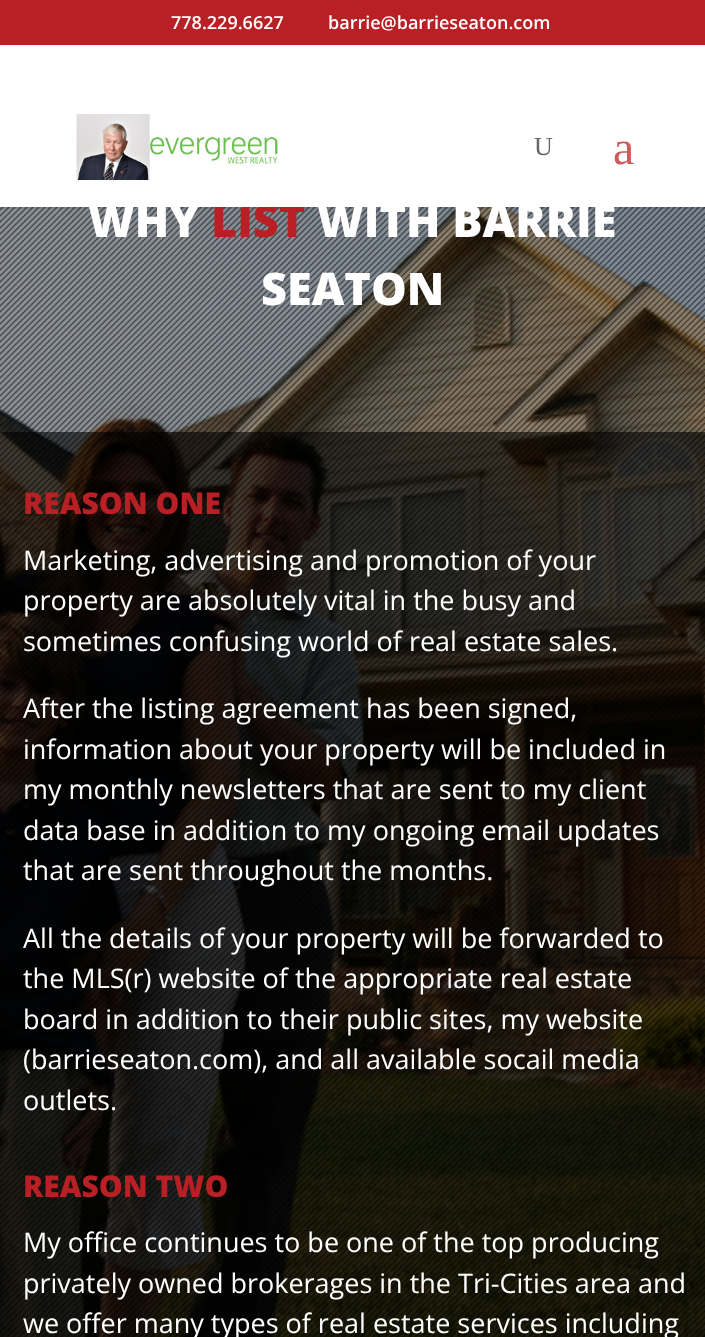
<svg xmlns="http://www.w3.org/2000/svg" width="705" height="1337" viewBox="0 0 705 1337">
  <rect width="100%" height="100%" fill="rgb(255,255,255)"/>
  <rect x="0" y="0" width="705" height="45" fill="rgb(185,32,37)"/>
  <g font-family="Open Sans" font-size="18" font-weight="600" fill="rgb(255,255,255)">
    <text x="171" y="29">778.229.6627</text>
    <text x="328" y="29">barrie@barrieseaton.com</text>
  </g>
  <image x="0" y="207" width="705" height="1130" href="pic2.png"/>
  <image x="0" y="207" width="705" height="1130" href="pic3.png"/>
  <rect x="0" y="207" width="705" height="225" fill="rgba(0,0,0,0.39)"/>
  <rect x="0" y="207" width="705" height="2" fill="rgba(0,0,0,0.1)"/>
  <text x="211" y="237" font-family="Open Sans" font-size="45" font-weight="800" fill="rgb(185,32,37)">LIST</text>
  <rect x="214" y="204" width="91" height="3" fill="rgb(255,255,255)"/>
  <image x="76" y="114" width="202" height="66" href="pic1.png"/>
  <text x="534" y="155" font-family="Liberation Serif" font-size="26" fill="rgb(102,102,102)">U</text>
  <text x="613" y="164" font-family="Liberation Serif" font-size="48" fill="rgb(205,92,92)">a</text>
  <g font-family="Open Sans" font-size="45" font-weight="800" fill="rgb(255,255,255)">
    <text x="88" y="237">WHY</text>
    <text x="317" y="237">WITH BARRIE</text>
    <text x="261" y="305">SEATON</text>
  </g>
  <rect x="0" y="432" width="705" height="905" fill="rgba(0,0,0,0.74)"/>
  <text x="23" y="514" font-family="Open Sans" font-size="30" font-weight="800" fill="rgb(185,32,37)">REASON ONE</text>
  <g font-family="Open Sans" font-size="27" fill="rgb(255,255,255)">
    <text>
      <tspan x="23" y="570">Marketing, advertising and promotion of your</tspan>
      <tspan x="23" y="610">property are absolutely vital in the busy and</tspan>
      <tspan x="23" y="651">sometimes confusing world of real estate sales.</tspan>
    </text>
    <text>
      <tspan x="23" y="718">After the listing agreement has been signed,</tspan>
      <tspan x="23" y="759">information about your property will be included in</tspan>
      <tspan x="23" y="799">my monthly newsletters that are sent to my client</tspan>
      <tspan x="23" y="840">data base in addition to my ongoing email updates</tspan>
      <tspan x="23" y="880">that are sent throughout the months.</tspan>
    </text>
    <text>
      <tspan x="23" y="948">All the details of your property will be forwarded to</tspan>
      <tspan x="23" y="988">the MLS(r) website of the appropriate real estate</tspan>
      <tspan x="23" y="1029">board in addition to their public sites, my website</tspan>
      <tspan x="23" y="1069">(barrieseaton.com), and all available socail media</tspan>
      <tspan x="23" y="1110">outlets.</tspan>
    </text>
  </g>
  <text x="23" y="1197" font-family="Open Sans" font-size="30" font-weight="800" fill="rgb(185,32,37)">REASON TWO</text>
  <g font-family="Open Sans" font-size="27" fill="rgb(255,255,255)">
    <text>
      <tspan x="23" y="1252">My office continues to be one of the top producing</tspan>
      <tspan x="23" y="1293">privately owned brokerages in the Tri-Cities area and</tspan>
      <tspan x="23" y="1333">we offer many types of real estate services including</tspan>
    </text>
  </g>
</svg>
